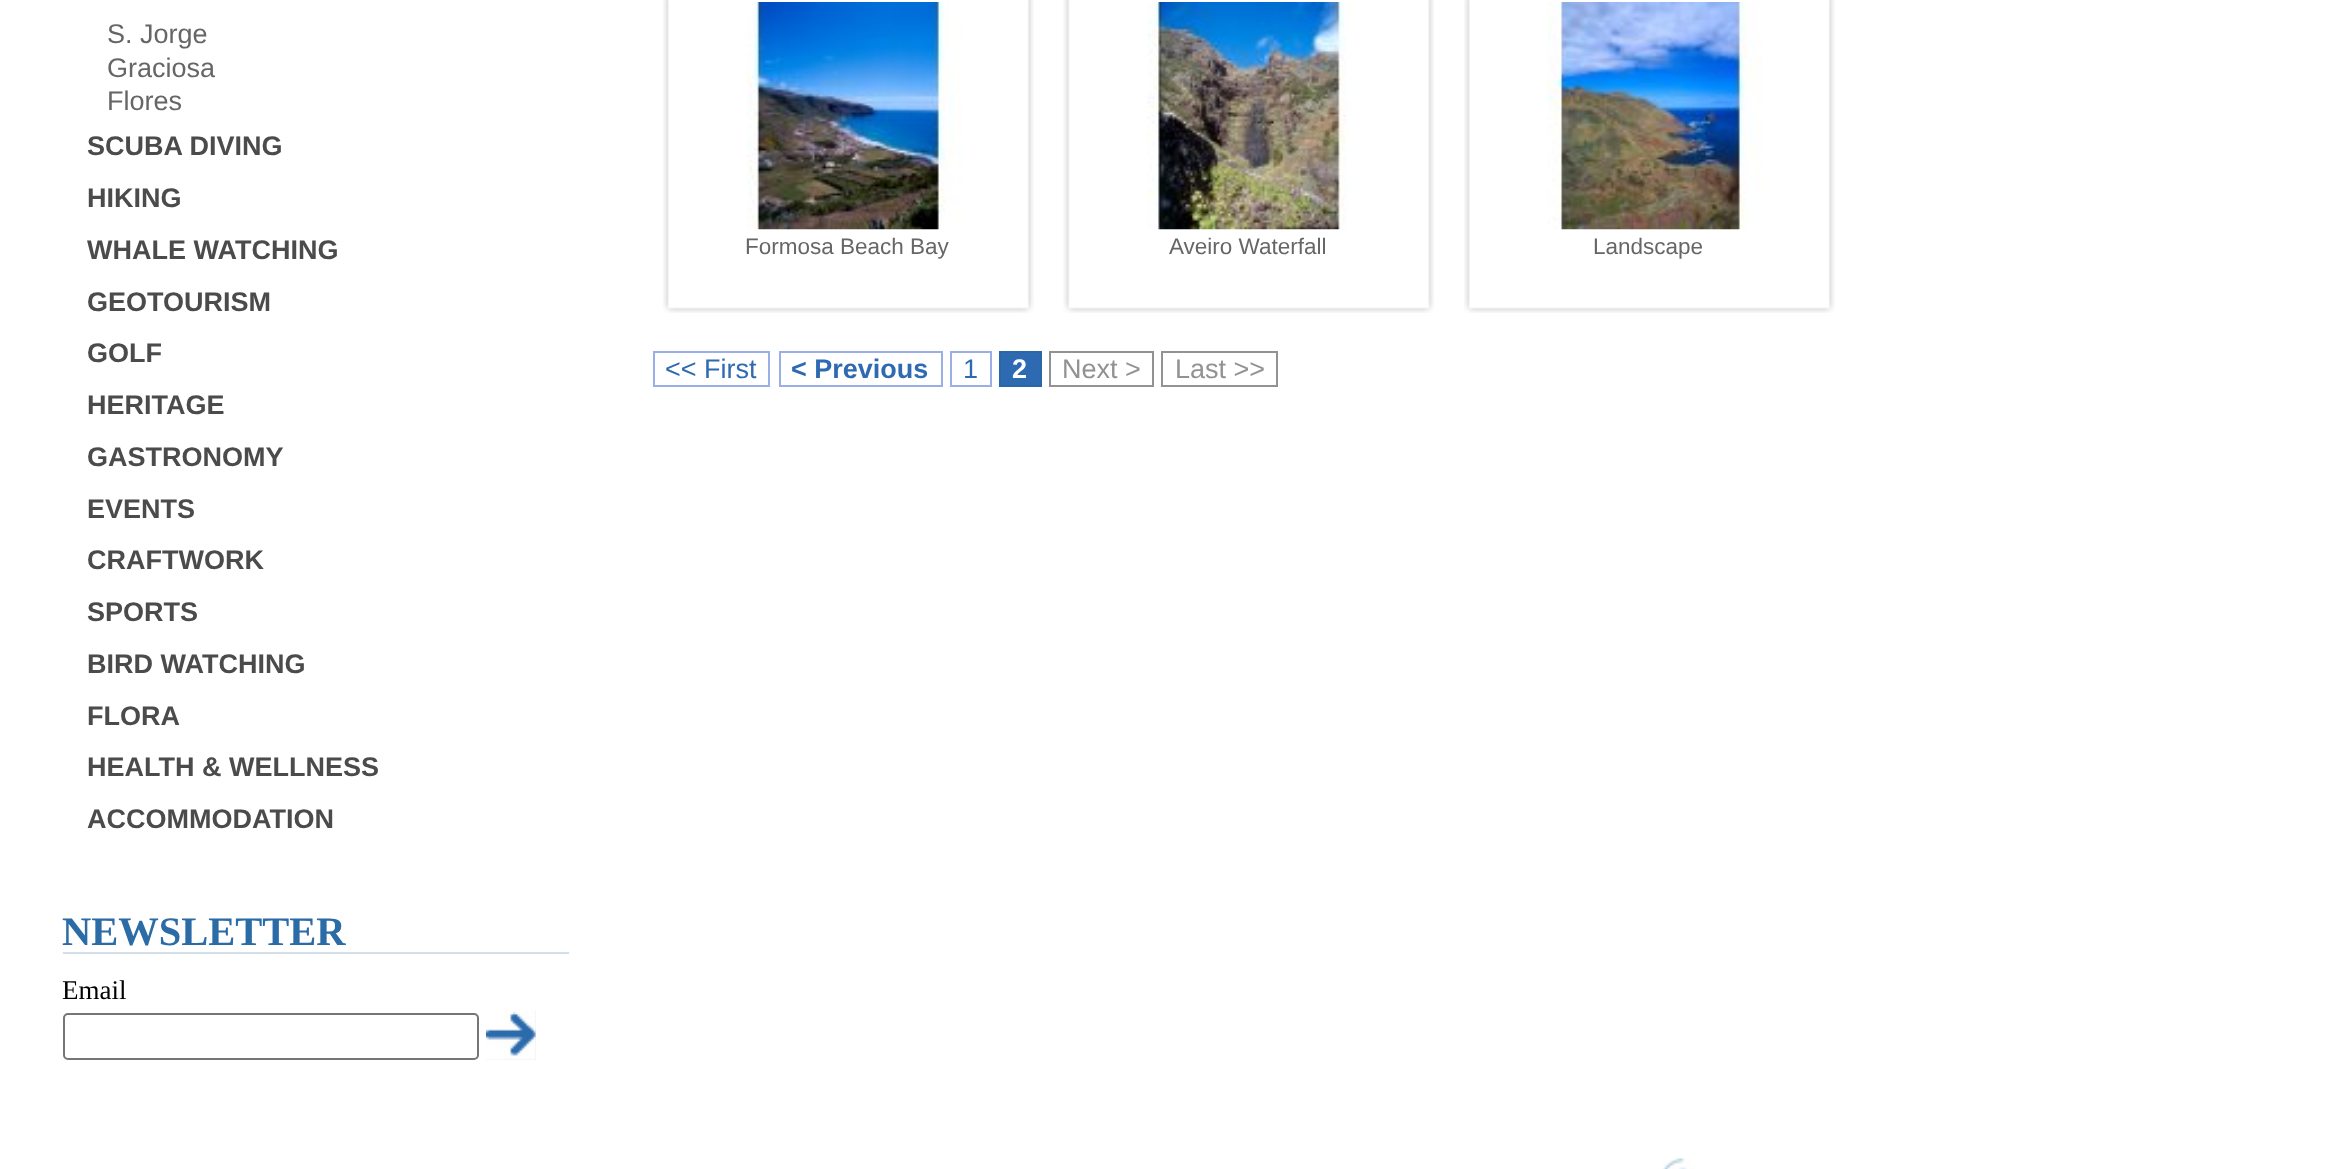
<svg xmlns="http://www.w3.org/2000/svg" width="2326" height="1169" viewBox="0 0 2326 1169">
  <rect width="100%" height="100%" fill="rgb(255,255,255)"/>
  <g font-family="Liberation Sans" font-size="27" fill="rgb(102,102,102)">
    <text>
      <tspan x="107" y="43">S. Jorge</tspan>
      <tspan x="107" y="77">Graciosa</tspan>
      <tspan x="107" y="110">Flores</tspan>
    </text>
  </g>
  <g font-family="Liberation Sans" font-size="27" font-weight="bold" fill="rgb(75,75,75)">
    <text>
      <tspan x="87" y="155">SCUBA DIVING</tspan>
      <tspan x="87" y="207">HIKING</tspan>
      <tspan x="87" y="259">WHALE WATCHING</tspan>
      <tspan x="87" y="311">GEOTOURISM</tspan>
      <tspan x="87" y="362">GOLF</tspan>
      <tspan x="87" y="414">HERITAGE</tspan>
      <tspan x="87" y="466">GASTRONOMY</tspan>
      <tspan x="87" y="518">EVENTS</tspan>
      <tspan x="87" y="569">CRAFTWORK</tspan>
      <tspan x="87" y="621">SPORTS</tspan>
      <tspan x="87" y="673">BIRD WATCHING</tspan>
      <tspan x="87" y="725">FLORA</tspan>
      <tspan x="87" y="776">HEALTH &amp; WELLNESS</tspan>
      <tspan x="87" y="828">ACCOMMODATION</tspan>
    </text>
  </g>
  <rect x="63" y="952" width="506" height="2" fill="rgb(211,223,233)"/>
  <text x="62" y="945" font-family="Liberation Serif" font-size="40.5" font-weight="bold" fill="rgb(43,107,166)">NEWSLETTER</text>
  <text x="62" y="999" font-family="Liberation Serif" font-size="27" fill="rgb(0,0,0)">Email</text>
  <rect x="64" y="1014" width="414" height="45" rx="4" fill="none" stroke="rgb(118,118,118)" stroke-width="2"/>
  <rect x="486" y="1010" width="50" height="50" fill="rgb(239,239,239)"/>
  <image x="486" y="1010" width="50" height="50" href="pic1.png"/>
  <image x="663" y="0" width="371" height="313" href="pic2.png"/>
  <image x="746" y="2" width="217" height="228" href="pic3.png"/>
  <text x="745" y="254" font-family="Liberation Sans" font-size="22.5" fill="rgb(102,102,102)">Formosa Beach Bay</text>
  <image x="1063" y="0" width="371" height="313" href="pic4.png"/>
  <image x="1147" y="2" width="206" height="228" href="pic5.png"/>
  <text x="1169" y="254" font-family="Liberation Sans" font-size="22.5" fill="rgb(102,102,102)">Aveiro Waterfall</text>
  <image x="1464" y="0" width="371" height="313" href="pic2.png"/>
  <image x="1547" y="2" width="216" height="228" href="pic6.png"/>
  <text x="1593" y="254" font-family="Liberation Sans" font-size="22.5" fill="rgb(102,102,102)">Landscape</text>
  <rect x="654" y="352" width="115" height="34" fill="none" stroke="rgb(154,175,229)" stroke-width="2"/>
  <text x="665" y="378" font-family="Liberation Sans" font-size="27" fill="rgb(46,106,177)">&lt;&lt; First</text>
  <rect x="780" y="352" width="162" height="34" fill="none" stroke="rgb(154,175,229)" stroke-width="2"/>
  <text x="791" y="378" font-family="Liberation Sans" font-size="27" font-weight="bold" fill="rgb(46,106,177)">&lt; Previous</text>
  <rect x="951" y="352" width="40" height="34" fill="none" stroke="rgb(154,175,229)" stroke-width="2"/>
  <text x="963" y="378" font-family="Liberation Sans" font-size="27" fill="rgb(46,106,177)">1</text>
  <rect x="1000" y="352" width="41" height="34" fill="rgb(46,106,177)" stroke="rgb(43,102,165)" stroke-width="2"/>
  <text x="1012" y="378" font-family="Liberation Sans" font-size="27" font-weight="bold" fill="rgb(255,255,255)">2</text>
  <rect x="1050" y="352" width="103" height="34" fill="none" stroke="rgb(146,146,146)" stroke-width="2"/>
  <text x="1062" y="378" font-family="Liberation Sans" font-size="27" fill="rgb(146,146,146)">Next &gt;</text>
  <rect x="1162" y="352" width="115" height="34" fill="none" stroke="rgb(146,146,146)" stroke-width="2"/>
  <text x="1175" y="378" font-family="Liberation Sans" font-size="27" fill="rgb(146,146,146)">Last &gt;&gt;</text>
  <image x="1662" y="1158" width="32" height="11" href="pic7.png"/>
</svg>
